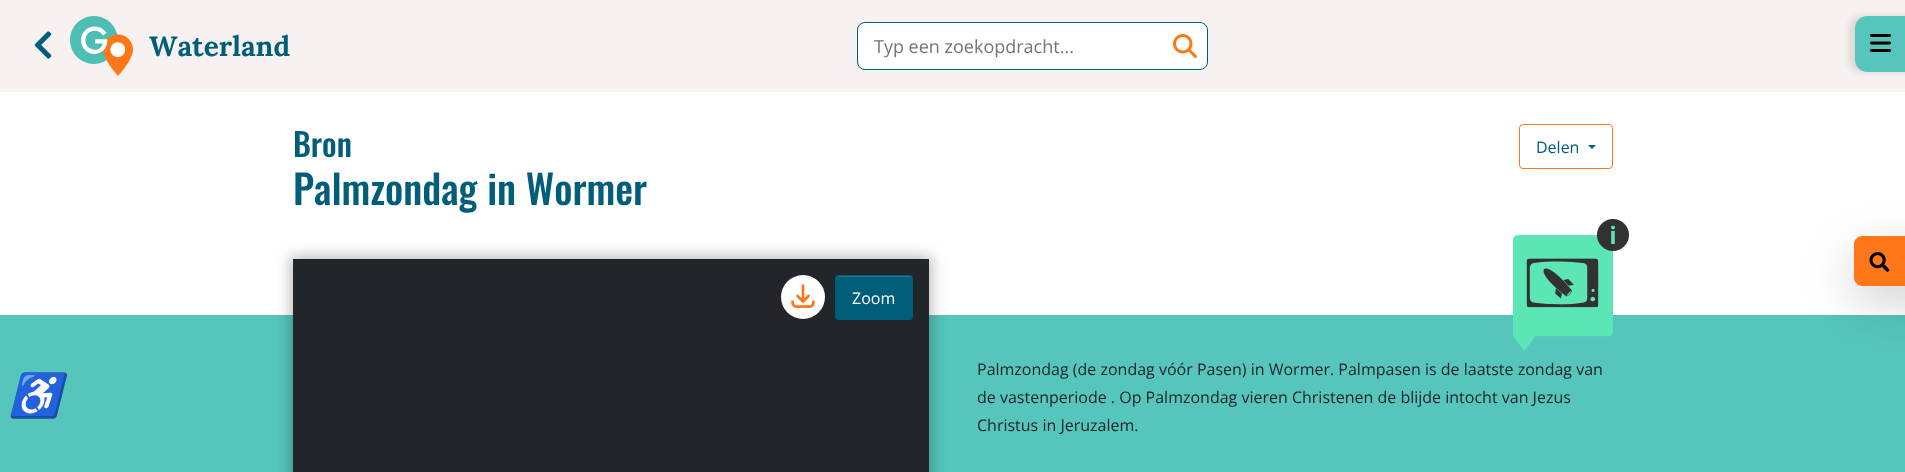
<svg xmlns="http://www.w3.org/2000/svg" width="1905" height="472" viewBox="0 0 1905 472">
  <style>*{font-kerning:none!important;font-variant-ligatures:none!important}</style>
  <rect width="100%" height="100%" fill="rgb(255,255,255)"/>
  <rect x="0" y="0" width="1905" height="92" fill="rgb(247,242,239)"/>
  <image x="34" y="31" width="18" height="28" href="pic1.png"/>
  <image x="70" y="16" width="63" height="60" href="pic2.png"/>
  <text x="149" y="56" font-family="Lora" font-size="28" font-weight="bold" fill="rgb(0,94,122)">Waterland</text>
  <rect x="857.5" y="22.5" width="350" height="47" rx="7.5" fill="rgb(255,255,255)" stroke="rgb(0,94,122)"/>
  <text x="874" y="53" font-family="Open Sans" font-size="18" fill="rgb(109,117,126)">Typ een zoekopdracht...</text>
  <image x="1173" y="34" width="24" height="24" href="pic3.png"/>
  <rect x="1849" y="16" width="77" height="56" rx="12" fill="rgba(0,0,0,0.1)" filter="blur(3px)"/>
  <path d="M1867 16H1905V72H1867C1860.5 72 1855 66.5 1855 60V28C1855 21.5 1860.5 16 1867 16Z" fill="rgb(86,197,187)"/>
  <image x="1870" y="34" width="21" height="18" href="pic4.png"/>
  <text x="293" y="157" font-family="Oswald" font-size="32" font-weight="500" fill="rgb(0,94,122)">Bron</text>
  <text x="293" y="205" font-family="Oswald" font-size="40" font-weight="500" fill="rgb(0,94,122)">Palmzondag in Wormer</text>
  <rect x="1519.5" y="124.5" width="93" height="44" rx="3.5" fill="none" stroke="rgb(255,119,25)"/>
  <text x="1536" y="153" font-family="Open Sans" font-size="16" fill="rgb(0,94,122)">Delen</text>
  <path d="M1588 145H1596L1592 149Z" fill="rgb(0,94,122)"/>
  <rect x="0" y="315" width="1905" height="157" fill="rgb(86,197,187)"/>
  <image x="1513" y="235" width="100" height="116" href="pic6.png"/>
  <image x="1597" y="219" width="32" height="32" href="pic5.png"/>
  <rect x="290" y="256" width="642" height="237" fill="rgba(0,0,0,0.26)" filter="blur(7px)"/>
  <rect x="293" y="259" width="636" height="213" fill="rgb(34,38,42)"/>
  <circle cx="803" cy="297" r="22" fill="rgb(255,255,255)"/>
  <path d="M792.5 301.5C792.5 308 797.5 306.5 803 306.5C808.5 306.5 813.5 308 813.5 301.5M808.5 296L803 301.5M803 301.5L797.5 296M803 301.5V285.5" fill="none" stroke="rgb(255,119,25)" stroke-width="2.7" stroke-linecap="round" stroke-linejoin="round"/>
  <rect x="835" y="275" width="78" height="45" rx="4" fill="rgb(0,94,122)"/>
  <path d="M839 277H909C911 277 912 278 912 280C912 273 901 276 897 276H851C847 276 836 273 836 280C836 278 837 277 839 277Z" fill="rgb(38,118,142)"/>
  <rect x="835.5" y="275.5" width="77" height="44" rx="3.5" fill="none" stroke="rgb(0,94,122)"/>
  <text x="852" y="304" font-family="Open Sans" font-size="16" fill="rgb(255,255,255)">Zoom</text>
  <g font-family="Open Sans" font-size="16" fill="rgb(34,38,42)">
    <text>
      <tspan x="977" y="375">Palmzondag (de zondag vóór Pasen) in Wormer. Palmpasen is de laatste zondag van</tspan>
      <tspan x="977" y="403">de vastenperiode . Op Palmzondag vieren Christenen de blijde intocht van Jezus</tspan>
      <tspan x="977" y="431">Christus in Jeruzalem.</tspan>
    </text>
  </g>
  <rect x="1854" y="252" width="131" height="50" rx="8" fill="rgba(0,0,0,0.18)" filter="blur(24px)"/>
  <path d="M1862 236.5H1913.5V285.5H1862C1858 285.5 1854.5 282 1854.5 278V244C1854.5 240 1858 236.5 1862 236.5Z" fill="rgb(255,119,25)" stroke="rgb(255,119,25)"/>
  <image x="1869" y="252" width="21" height="20" href="pic7.png"/>
  <text x="9" y="410" font-family="Noto Color Emoji" font-size="42" font-style="italic" letter-spacing="-3" fill="rgb(255,255,255)">♿</text>
</svg>
